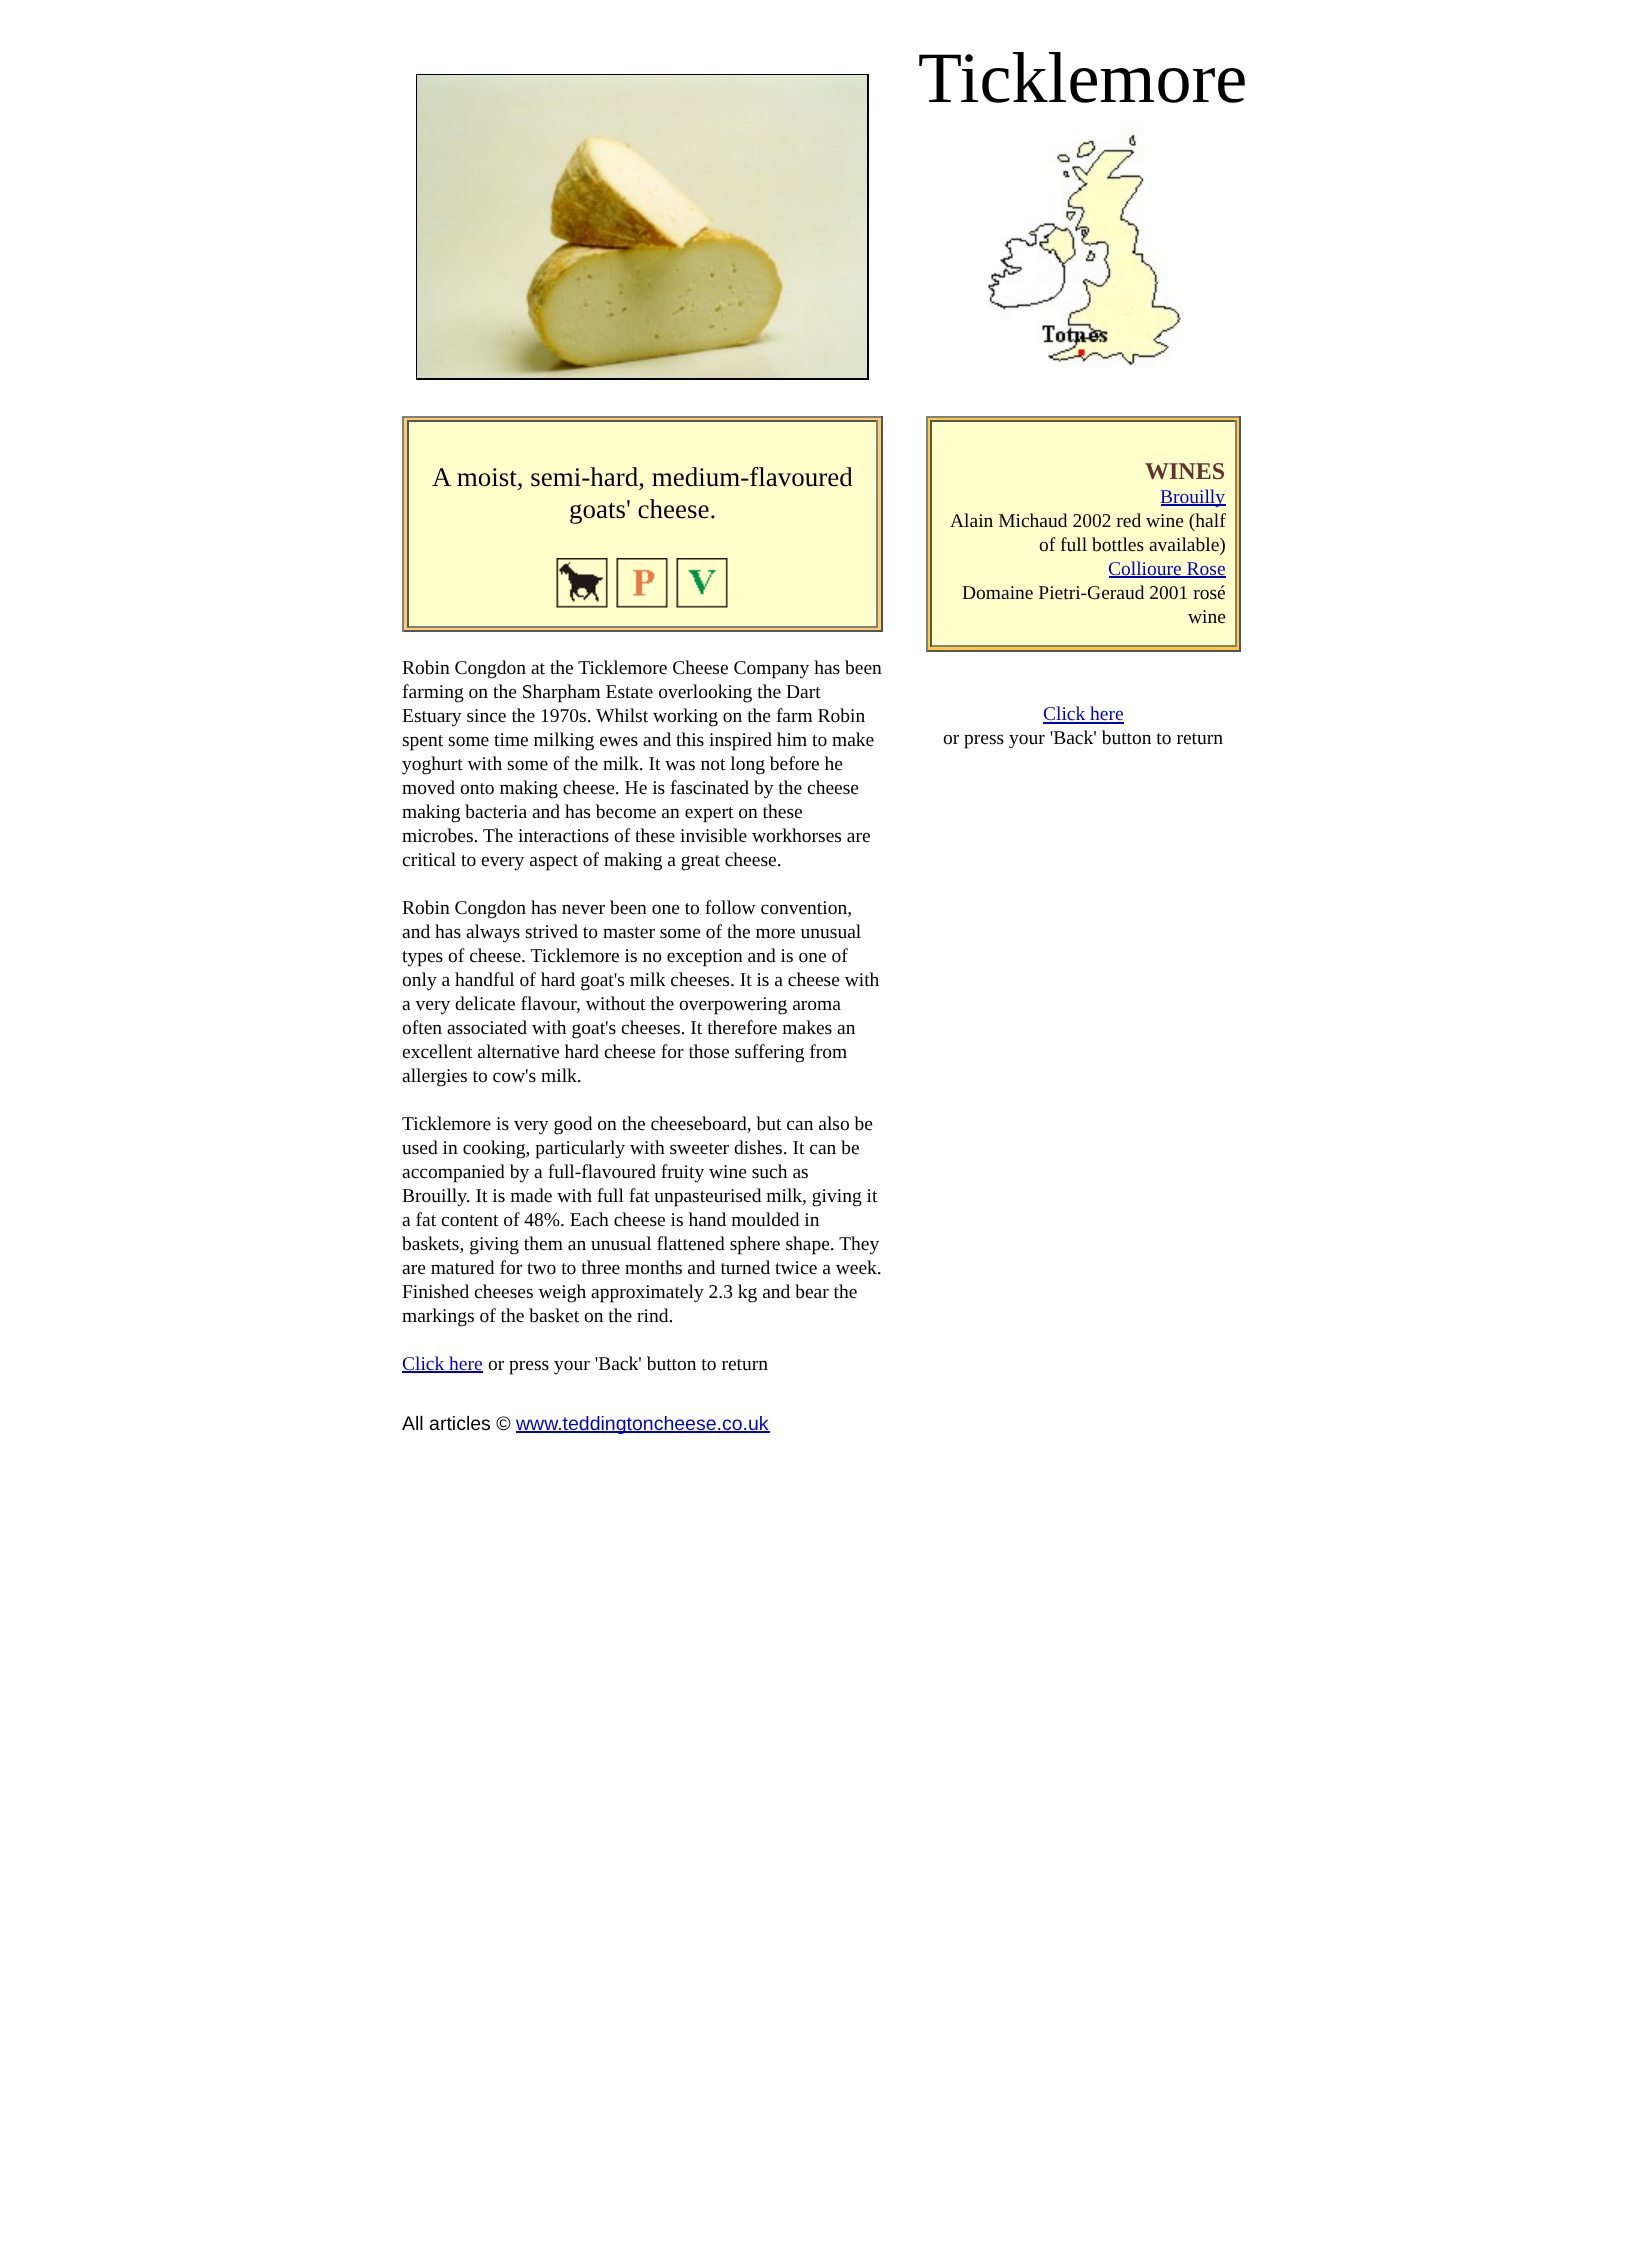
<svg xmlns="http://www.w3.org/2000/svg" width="1649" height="2259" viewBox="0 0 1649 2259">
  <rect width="100%" height="100%" fill="rgb(255,255,255)"/>
  <rect x="417" y="75" width="451" height="304" fill="none" stroke="rgb(0,0,0)" stroke-width="2"/>
  <image x="417" y="75" width="450" height="303" href="pic1.png"/>
  <text x="918" y="102" font-family="Liberation Serif" font-size="72" fill="rgb(0,0,0)">Ticklemore</text>
  <image x="987" y="127" width="197" height="241" href="pic2.png"/>
  <rect x="404" y="418" width="477" height="212" fill="rgb(255,204,102)"/>
  <rect x="402" y="416" width="480" height="2" fill="rgb(128,128,128)"/>
  <rect x="881" y="416" width="2" height="216" fill="rgb(85,85,85)"/>
  <rect x="402" y="630" width="480" height="2" fill="rgb(85,85,85)"/>
  <rect x="402" y="416" width="2" height="216" fill="rgb(128,128,128)"/>
  <rect x="409" y="422" width="467" height="204" fill="rgb(255,255,204)"/>
  <rect x="407" y="420" width="471" height="2" fill="rgb(85,85,85)"/>
  <rect x="876" y="420" width="2" height="207" fill="rgb(128,128,128)"/>
  <rect x="407" y="626" width="471" height="2" fill="rgb(128,128,128)"/>
  <rect x="407" y="420" width="2" height="207" fill="rgb(85,85,85)"/>
  <g font-family="Liberation Serif" font-size="27" fill="rgb(0,0,0)">
    <text x="432" y="486">A moist, semi-hard, medium-flavoured</text>
    <text x="569" y="518">goats' cheese.</text>
  </g>
  <image x="556" y="558" width="52" height="50" href="pic3.png"/>
  <image x="616" y="558" width="52" height="50" href="pic4.png"/>
  <image x="676" y="558" width="52" height="50" href="pic5.png"/>
  <g font-family="Liberation Serif" font-size="19.5" fill="rgb(0,0,0)">
    <text>
      <tspan x="402" y="674">Robin Congdon at the Ticklemore Cheese Company has been</tspan>
      <tspan x="402" y="698">farming on the Sharpham Estate overlooking the Dart</tspan>
      <tspan x="402" y="722">Estuary since the 1970s. Whilst working on the farm Robin</tspan>
      <tspan x="402" y="746">spent some time milking ewes and this inspired him to make</tspan>
      <tspan x="402" y="770">yoghurt with some of the milk. It was not long before he</tspan>
      <tspan x="402" y="794">moved onto making cheese. He is fascinated by the cheese</tspan>
      <tspan x="402" y="818">making bacteria and has become an expert on these</tspan>
      <tspan x="402" y="842">microbes. The interactions of these invisible workhorses are</tspan>
      <tspan x="402" y="866">critical to every aspect of making a great cheese.</tspan>
    </text>
    <text>
      <tspan x="402" y="914">Robin Congdon has never been one to follow convention,</tspan>
      <tspan x="402" y="938">and has always strived to master some of the more unusual</tspan>
      <tspan x="402" y="962">types of cheese. Ticklemore is no exception and is one of</tspan>
      <tspan x="402" y="986">only a handful of hard goat's milk cheeses. It is a cheese with</tspan>
      <tspan x="402" y="1010">a very delicate flavour, without the overpowering aroma</tspan>
      <tspan x="402" y="1034">often associated with goat's cheeses. It therefore makes an</tspan>
      <tspan x="402" y="1058">excellent alternative hard cheese for those suffering from</tspan>
      <tspan x="402" y="1082">allergies to cow's milk.</tspan>
    </text>
    <text>
      <tspan x="402" y="1130">Ticklemore is very good on the cheeseboard, but can also be</tspan>
      <tspan x="402" y="1154">used in cooking, particularly with sweeter dishes. It can be</tspan>
      <tspan x="402" y="1178">accompanied by a full-flavoured fruity wine such as</tspan>
      <tspan x="402" y="1202">Brouilly. It is made with full fat unpasteurised milk, giving it</tspan>
      <tspan x="402" y="1226">a fat content of 48%. Each cheese is hand moulded in</tspan>
      <tspan x="402" y="1250">baskets, giving them an unusual flattened sphere shape. They</tspan>
      <tspan x="402" y="1274">are matured for two to three months and turned twice a week.</tspan>
      <tspan x="402" y="1298">Finished cheeses weigh approximately 2.3 kg and bear the</tspan>
      <tspan x="402" y="1322">markings of the basket on the rind.</tspan>
    </text>
  </g>
  <text x="402" y="1370" font-family="Liberation Serif" font-size="19.5" fill="rgb(0,0,204)">Click here</text>
  <rect x="402" y="1371" width="81" height="2" fill="rgb(0,0,204)"/>
  <text x="488" y="1370" font-family="Liberation Serif" font-size="19.5" fill="rgb(0,0,0)">or press your 'Back' button to return</text>
  <rect x="928" y="418" width="311" height="232" fill="rgb(255,204,51)"/>
  <rect x="926" y="416" width="315" height="2" fill="rgb(128,128,128)"/>
  <rect x="1239" y="416" width="2" height="235" fill="rgb(85,85,85)"/>
  <rect x="926" y="650" width="315" height="2" fill="rgb(85,85,85)"/>
  <rect x="926" y="416" width="2" height="235" fill="rgb(128,128,128)"/>
  <rect x="932" y="422" width="303" height="223" fill="rgb(255,255,204)"/>
  <rect x="930" y="420" width="306" height="2" fill="rgb(85,85,85)"/>
  <rect x="1235" y="420" width="2" height="227" fill="rgb(128,128,128)"/>
  <rect x="930" y="645" width="306" height="2" fill="rgb(128,128,128)"/>
  <rect x="930" y="420" width="2" height="227" fill="rgb(85,85,85)"/>
  <text x="1145" y="479" font-family="Liberation Serif" font-size="24" font-weight="bold" fill="rgb(102,51,51)">WINES</text>
  <rect x="1161" y="504" width="65" height="2" fill="rgb(0,0,204)"/>
  <text x="1160" y="503" font-family="Liberation Serif" font-size="19.5" fill="rgb(0,0,204)">Brouilly</text>
  <g font-family="Liberation Serif" font-size="19.5" fill="rgb(0,0,0)">
    <text x="950" y="527">Alain Michaud 2002 red wine (half</text>
    <text x="1039" y="551">of full bottles available)</text>
  </g>
  <text x="1108" y="575" font-family="Liberation Serif" font-size="19.5" fill="rgb(0,0,204)">Collioure Rose</text>
  <rect x="1109" y="576" width="117" height="2" fill="rgb(0,0,204)"/>
  <g font-family="Liberation Serif" font-size="19.5" fill="rgb(0,0,0)">
    <text x="962" y="599">Domaine Pietri-Geraud 2001 rosé</text>
    <text x="1188" y="623">wine</text>
  </g>
  <text x="1043" y="720" font-family="Liberation Serif" font-size="19.5" fill="rgb(0,0,204)">Click here</text>
  <rect x="1043" y="722" width="81" height="2" fill="rgb(0,0,204)"/>
  <text x="943" y="744" font-family="Liberation Serif" font-size="19.5" fill="rgb(0,0,0)">or press your 'Back' button to return</text>
  <text x="402" y="1430" font-family="Liberation Sans" font-size="19.5" fill="rgb(0,0,0)">All articles ©</text>
  <rect x="516" y="1431" width="254" height="2" fill="rgb(0,0,204)"/>
  <text x="516" y="1430" font-family="Liberation Sans" font-size="19.5" fill="rgb(0,0,204)">www.teddingtoncheese.co.uk</text>
</svg>
